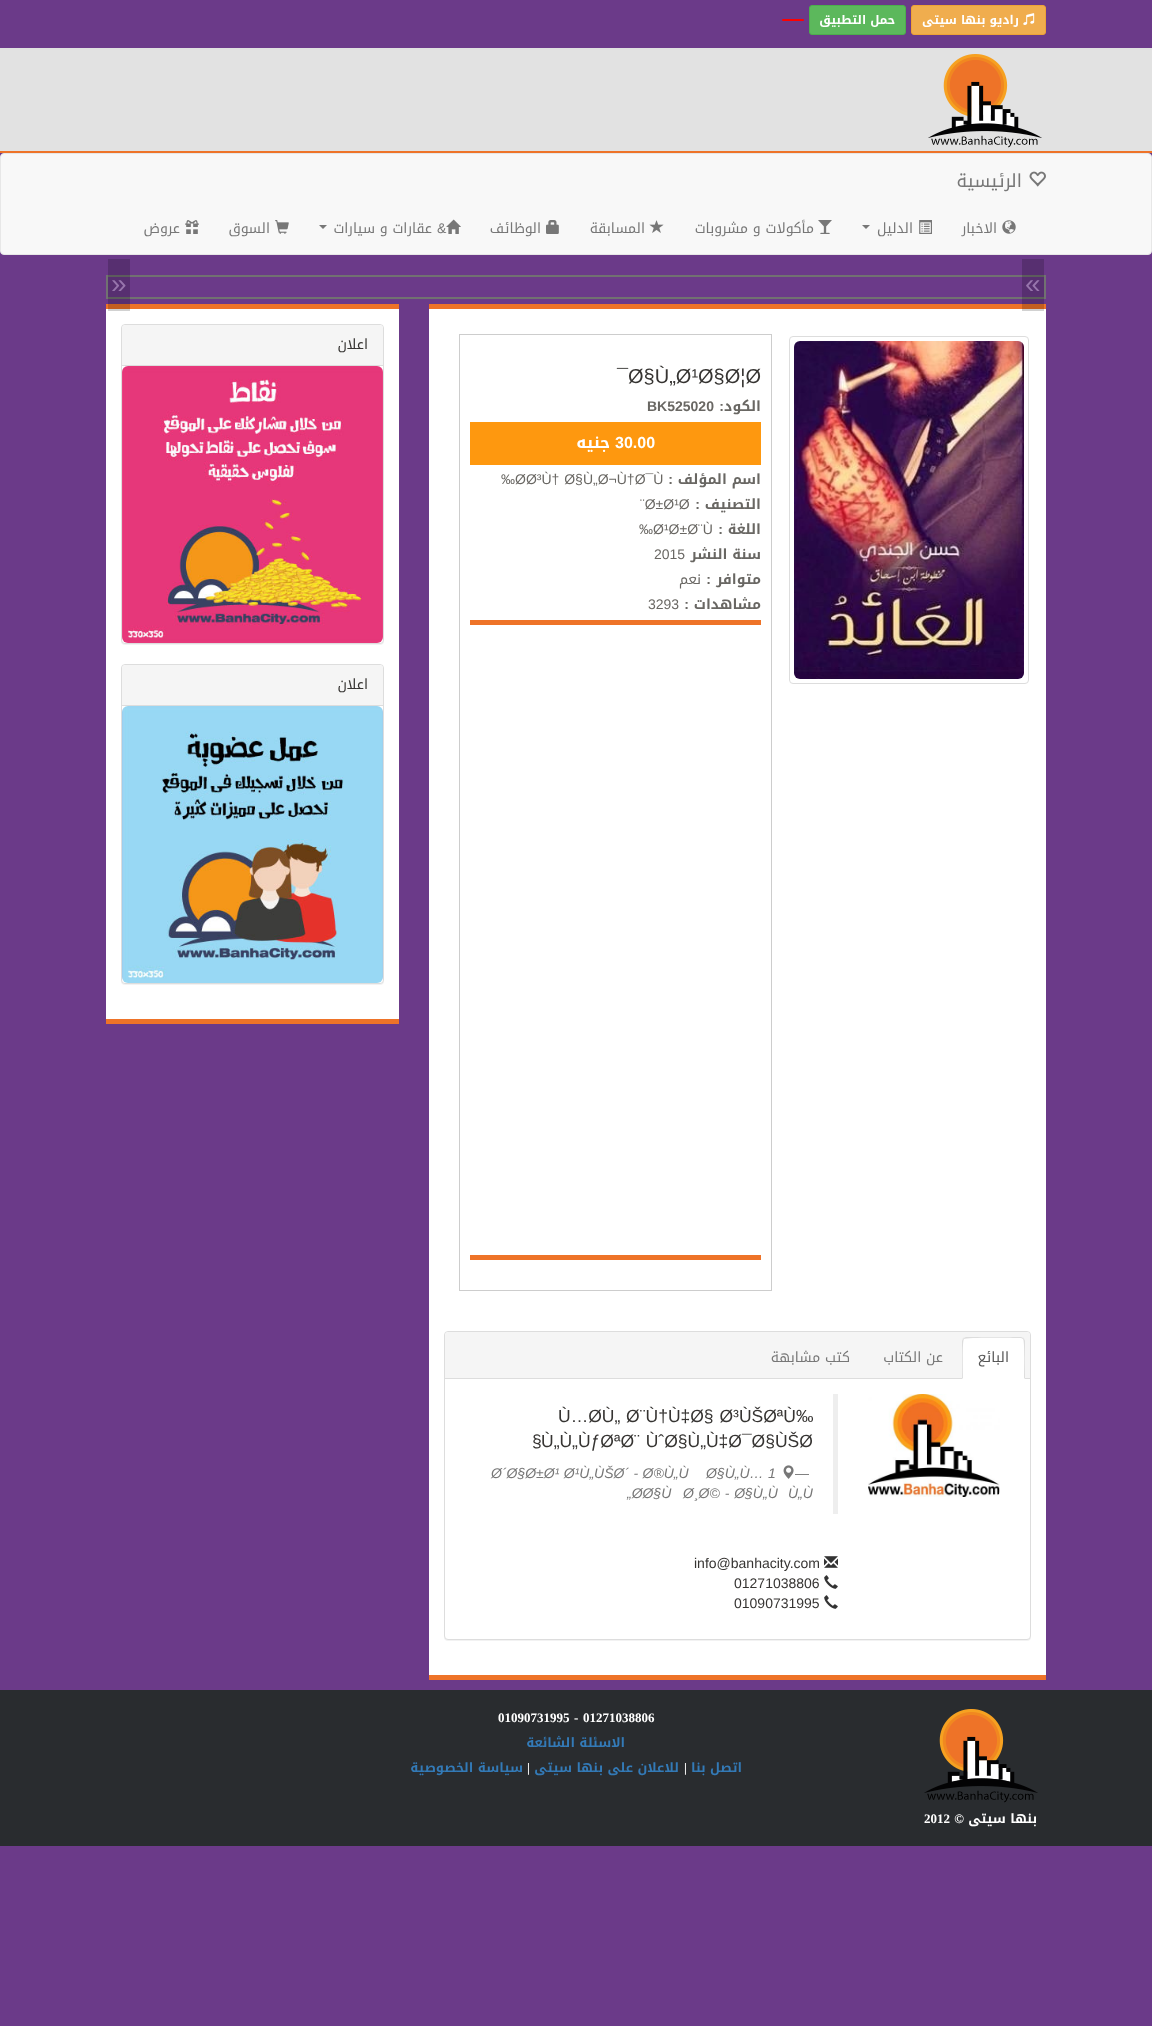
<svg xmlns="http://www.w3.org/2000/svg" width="1152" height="2026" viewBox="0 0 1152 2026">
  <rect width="100%" height="100%" fill="rgb(107,58,137)"/>
  <rect x="0" y="48" width="1152" height="2" fill="rgb(224,224,224)"/>
  <rect x="911.5" y="5.5" width="134" height="29" rx="2.5" fill="rgb(240,173,78)" stroke="rgb(238,162,54)"/>
  <image x="1023" y="13" width="12" height="12" href="pic1.png"/>
  <text x="1019" y="24" font-family="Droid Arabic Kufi" font-size="12" font-weight="bold" direction="rtl" fill="rgb(255,255,255)">راديو بنها سيتى</text>
  <rect x="809.5" y="5.5" width="96" height="29" rx="2.5" fill="rgb(92,184,92)" stroke="rgb(76,174,76)"/>
  <text x="895" y="24" font-family="Droid Arabic Kufi" font-size="12" font-weight="bold" direction="rtl" fill="rgb(255,255,255)">حمل التطبيق</text>
  <rect x="782" y="19" width="22" height="2" rx="1" fill="rgb(255,0,0)"/>
  <rect x="0" y="50" width="1152" height="101" fill="rgb(226,226,226)"/>
  <rect x="0" y="151" width="1152" height="2" fill="rgb(238,115,40)"/>
  <image x="928" y="54" width="114" height="94" href="pic2.png"/>
  <rect x="0.5" y="153.5" width="1151" height="101" rx="3.5" fill="rgb(248,248,248)" stroke="rgb(231,231,231)"/>
  <image x="1029" y="171" width="17" height="16" href="pic3.png"/>
  <text x="1022" y="187" font-family="Droid Arabic Kufi" font-size="18" direction="rtl" fill="rgb(119,119,119)">الرئيسية</text>
  <image x="1002" y="220" width="14" height="14" href="pic4.png"/>
  <text x="997" y="233" font-family="Droid Arabic Kufi" font-size="14" direction="rtl" fill="rgb(119,119,119)">الاخبار</text>
  <image x="919" y="220" width="13" height="14" href="pic5.png"/>
  <text x="913" y="233" font-family="Droid Arabic Kufi" font-size="14" direction="rtl" fill="rgb(119,119,119)">الدليل</text>
  <path d="M862 225H870L866 229Z" fill="rgb(119,119,119)"/>
  <image x="818" y="220" width="14" height="14" href="pic6.png"/>
  <text x="814" y="233" font-family="Droid Arabic Kufi" font-size="14" direction="rtl" fill="rgb(119,119,119)">مأكولات و مشروبات</text>
  <image x="649" y="220" width="15" height="13" href="pic7.png"/>
  <text x="645" y="233" font-family="Droid Arabic Kufi" font-size="14" direction="rtl" fill="rgb(119,119,119)">المسابقة</text>
  <image x="546" y="220" width="13" height="14" href="pic8.png"/>
  <text x="541" y="233" font-family="Droid Arabic Kufi" font-size="14" direction="rtl" fill="rgb(119,119,119)">الوظائف</text>
  <image x="446" y="219" width="15" height="15" href="pic9.png"/>
  <text x="437" y="233" font-family="Liberation Sans" font-size="14" fill="rgb(119,119,119)">&amp;</text>
  <text x="432" y="233" font-family="Droid Arabic Kufi" font-size="14" direction="rtl" fill="rgb(119,119,119)">عقارات و سيارات</text>
  <path d="M319 225H327L323 229Z" fill="rgb(119,119,119)"/>
  <image x="275" y="220" width="14" height="14" href="pic10.png"/>
  <text x="270" y="233" font-family="Droid Arabic Kufi" font-size="14" direction="rtl" fill="rgb(119,119,119)">السوق</text>
  <image x="185" y="220" width="14" height="14" href="pic11.png"/>
  <text x="180" y="233" font-family="Droid Arabic Kufi" font-size="14" direction="rtl" fill="rgb(119,119,119)">عروض</text>
  <rect x="107" y="276" width="938" height="22" fill="none" stroke="rgb(113,113,113)" stroke-width="2"/>
  <rect x="429" y="309" width="617" height="1366" fill="rgb(255,255,255)"/>
  <rect x="429" y="304" width="617" height="5" fill="rgb(238,115,40)"/>
  <rect x="1022" y="259" width="22" height="52" fill="rgba(0,0,0,0.18)"/>
  <text x="1025" y="293" font-family="Liberation Sans" font-size="28" fill="rgb(151,117,172)">«</text>
  <rect x="106" y="309" width="293" height="710" fill="rgb(255,255,255)"/>
  <rect x="106" y="304" width="293" height="5" fill="rgb(238,115,40)"/>
  <rect x="108" y="259" width="22" height="52" fill="rgba(0,0,0,0.18)"/>
  <text x="111" y="293" font-family="Liberation Sans" font-size="28" fill="rgb(151,117,172)">»</text>
  <rect x="429" y="1675" width="617" height="5" fill="rgb(238,115,40)"/>
  <rect x="789.5" y="336.5" width="239" height="347" rx="3.5" fill="none" stroke="rgb(221,221,221)"/>
  <image x="794" y="341" width="230" height="338" href="pic12.png"/>
  <rect x="459.5" y="334.5" width="312" height="956" fill="none" stroke="rgb(205,205,205)"/>
  <text x="617" y="383" font-family="Liberation Sans" font-size="20" fill="rgb(54,52,50)">¯Ø§Ù„Ø¹Ø§Ø¦Ø</text>
  <text x="761" y="411" font-family="Droid Arabic Kufi" font-size="14" font-weight="bold" direction="rtl" fill="rgb(105,103,99)">الكود</text>
  <text x="724" y="411" font-family="Liberation Sans" font-size="14" font-weight="bold" direction="rtl" fill="rgb(105,103,99)">:</text>
  <text x="647" y="411" font-family="Liberation Sans" font-size="14" font-weight="bold" fill="rgb(105,103,99)">BK525020</text>
  <rect x="470" y="422" width="291" height="43" fill="rgb(254,152,15)"/>
  <text x="615" y="448" font-family="Liberation Sans" font-size="16" font-weight="bold" fill="rgb(255,255,255)">30.00</text>
  <text x="610" y="448" font-family="Droid Arabic Kufi" font-size="16" font-weight="bold" direction="rtl" fill="rgb(255,255,255)">جنيه</text>
  <text x="761" y="484" font-family="Droid Arabic Kufi" font-size="14" font-weight="bold" direction="rtl" fill="rgb(105,103,99)">اسم المؤلف</text>
  <text x="673" y="484" font-family="Liberation Sans" font-size="14" font-weight="bold" direction="rtl" fill="rgb(105,103,99)">:</text>
  <g font-family="Liberation Sans" font-size="14" fill="rgb(105,103,99)">
    <text x="515" y="484" word-spacing="1">ØØ³Ù† Ø§Ù„Ø¬Ù†Ø¯Ù</text>
    <text x="501" y="484">‰</text>
  </g>
  <text x="761" y="509" font-family="Droid Arabic Kufi" font-size="14" font-weight="bold" direction="rtl" fill="rgb(105,103,99)">التصنيف</text>
  <text x="700" y="509" font-family="Liberation Sans" font-size="14" font-weight="bold" direction="rtl" fill="rgb(105,103,99)">:</text>
  <text x="640" y="509" font-family="Liberation Sans" font-size="14" fill="rgb(105,103,99)">¨Ø±Ø¹Ø</text>
  <text x="761" y="534" font-family="Droid Arabic Kufi" font-size="14" font-weight="bold" direction="rtl" fill="rgb(105,103,99)">اللغة</text>
  <text x="723" y="534" font-family="Liberation Sans" font-size="14" font-weight="bold" direction="rtl" fill="rgb(105,103,99)">:</text>
  <text x="639" y="534" font-family="Liberation Sans" font-size="14" fill="rgb(105,103,99)">‰Ø¹Ø±Ø¨Ù</text>
  <text x="761" y="559" font-family="Droid Arabic Kufi" font-size="14" font-weight="bold" direction="rtl" fill="rgb(105,103,99)">سنة النشر</text>
  <text x="654" y="559" font-family="Liberation Sans" font-size="14" fill="rgb(105,103,99)">2015</text>
  <text x="761" y="584" font-family="Droid Arabic Kufi" font-size="14" font-weight="bold" direction="rtl" fill="rgb(105,103,99)">متوافر</text>
  <text x="711" y="584" font-family="Liberation Sans" font-size="14" font-weight="bold" direction="rtl" fill="rgb(105,103,99)">:</text>
  <text x="701" y="584" font-family="Droid Arabic Kufi" font-size="14" direction="rtl" fill="rgb(105,103,99)">نعم</text>
  <text x="761" y="609" font-family="Droid Arabic Kufi" font-size="14" font-weight="bold" direction="rtl" fill="rgb(105,103,99)">مشاهدات</text>
  <text x="689" y="609" font-family="Liberation Sans" font-size="14" font-weight="bold" direction="rtl" fill="rgb(105,103,99)">:</text>
  <text x="648" y="609" font-family="Liberation Sans" font-size="14" fill="rgb(105,103,99)">3293</text>
  <rect x="470" y="620" width="291" height="5" fill="rgb(238,115,40)"/>
  <rect x="470" y="1255" width="291" height="5" fill="rgb(238,115,40)"/>
  <rect x="444" y="1332" width="587" height="309" rx="4" fill="rgba(0,0,0,0.05)" filter="blur(0.5px)"/>
  <rect x="444.5" y="1331.5" width="586" height="308" rx="3.5" fill="rgb(255,255,255)" stroke="rgb(221,221,221)"/>
  <path d="M448 1332H1027C1028.5 1332 1030 1333.5 1030 1335V1379H445V1335C445 1333.5 446.5 1332 448 1332Z" fill="rgb(245,245,245)"/>
  <rect x="445" y="1378" width="585" height="1" fill="rgb(221,221,221)"/>
  <path d="M966 1337H1021C1023 1337 1025 1339 1025 1341V1379H962V1341C962 1339 964 1337 966 1337Z" fill="rgb(255,255,255)"/>
  <path d="M966 1337L963 1338L964 1339C966 1337 1016 1338 1021 1338L1023 1339L1024 1338L1021 1337Z" fill="rgb(221,221,221)"/>
  <path d="M1025 1379V1341C1025 1340 1024 1339 1024 1338L1023 1339C1025 1341 1024 1373 1024 1378ZM962 1379L963 1378C963 1373 962 1341 964 1339L963 1338L962 1341Z" fill="rgb(221,221,221)"/>
  <text x="1009" y="1362" font-family="Droid Arabic Kufi" font-size="14" direction="rtl" fill="rgb(85,85,85)">البائع</text>
  <g font-family="Droid Arabic Kufi" font-size="14" direction="rtl" fill="rgb(119,119,119)">
    <text x="943" y="1362">عن الكتاب</text>
    <text x="850" y="1362">كتب مشابهة</text>
  </g>
  <image x="868" y="1394" width="132" height="103" href="pic13.png"/>
  <rect x="833" y="1394" width="5" height="120" fill="rgb(238,238,238)"/>
  <g font-family="Liberation Sans" font-size="17.5" fill="rgb(54,52,50)">
    <text x="558" y="1422" word-spacing="1">Ù…ØÙ„ Ø¨Ù†Ù‡Ø§ Ø³ÙŠØªÙ‰</text>
    <text x="541" y="1447" word-spacing="1">Ù„Ù„ÙƒØªØ¨ ÙˆØ§Ù„Ù‡Ø¯Ø§ÙŠØ</text>
    <text x="532" y="1447">§</text>
  </g>
  <text x="795" y="1478" font-family="Liberation Sans" font-size="14" fill="rgb(119,119,119)">—</text>
  <image x="783" y="1465" width="11" height="14" href="pic14.png"/>
  <g font-family="Liberation Sans" font-size="14" font-style="italic" fill="rgb(119,119,119)">
    <text x="768" y="1478">1</text>
    <text x="706" y="1478">Ø§Ù„Ù…</text>
    <text x="491" y="1478" word-spacing="0.5">Ø´Ø§Ø±Ø¹ Ø¹Ù„ÙŠØ´ - Ø®Ù„Ù</text>
    <text x="788" y="1498">Ù„Ù</text>
    <text x="683" y="1498" word-spacing="1">Ø¸Ø© - Ø§Ù„Ù</text>
    <text x="627" y="1498">„ØØ§Ù</text>
  </g>
  <image x="824" y="1556" width="14" height="12" href="pic15.png"/>
  <text x="694" y="1568" font-family="Liberation Sans" font-size="14" fill="rgb(54,52,50)">info@banhacity.com</text>
  <image x="824" y="1575" width="14" height="14" href="pic16.png"/>
  <text x="734" y="1588" font-family="Liberation Sans" font-size="14" fill="rgb(54,52,50)">01271038806</text>
  <image x="824" y="1595" width="14" height="14" href="pic16.png"/>
  <text x="734" y="1608" font-family="Liberation Sans" font-size="14" fill="rgb(54,52,50)">01090731995</text>
  <rect x="106" y="1019" width="293" height="5" fill="rgb(238,115,40)"/>
  <rect x="121" y="325" width="263" height="320" rx="4" fill="rgba(0,0,0,0.05)" filter="blur(0.5px)"/>
  <rect x="121.5" y="324.5" width="262" height="319" rx="3.5" fill="rgb(255,255,255)" stroke="rgb(221,221,221)"/>
  <path d="M125 325H380C381.5 325 383 326.5 383 328V366H122V328C122 326.5 123.5 325 125 325Z" fill="rgb(245,245,245)"/>
  <rect x="122" y="365" width="261" height="1" fill="rgb(221,221,221)"/>
  <text x="368" y="349" font-family="Droid Arabic Kufi" font-size="14" direction="rtl" fill="rgb(54,52,50)">اعلان</text>
  <image x="122" y="366" width="261" height="277" href="pic17.png"/>
  <rect x="121" y="665" width="263" height="320" rx="4" fill="rgba(0,0,0,0.05)" filter="blur(0.5px)"/>
  <rect x="121.5" y="664.5" width="262" height="319" rx="3.5" fill="rgb(255,255,255)" stroke="rgb(221,221,221)"/>
  <path d="M125 665H380C381.5 665 383 666.5 383 668V706H122V668C122 666.5 123.5 665 125 665Z" fill="rgb(245,245,245)"/>
  <rect x="122" y="705" width="261" height="1" fill="rgb(221,221,221)"/>
  <text x="368" y="689" font-family="Droid Arabic Kufi" font-size="14" direction="rtl" fill="rgb(54,52,50)">اعلان</text>
  <image x="122" y="706" width="261" height="277" href="pic18.png"/>
  <rect x="0" y="1690" width="1152" height="156" fill="rgb(41,44,47)"/>
  <g font-family="Liberation Serif" font-size="13" font-weight="bold" fill="rgb(255,255,255)">
    <text x="583" y="1722">01271038806</text>
    <text x="574" y="1722">-</text>
    <text x="498" y="1722">01090731995</text>
  </g>
  <g font-family="Droid Arabic Kufi" font-size="13" font-weight="bold" direction="rtl" fill="rgb(51,122,183)">
    <text x="625" y="1747">الاسئلة الشائعة</text>
    <text x="742" y="1772">اتصل بنا</text>
  </g>
  <text x="684" y="1772" font-family="Liberation Serif" font-size="13" font-weight="bold" fill="rgb(255,255,255)">|</text>
  <text x="679" y="1772" font-family="Droid Arabic Kufi" font-size="13" font-weight="bold" direction="rtl" fill="rgb(51,122,183)">للاعلان على بنها سيتى</text>
  <text x="527" y="1772" font-family="Liberation Serif" font-size="13" font-weight="bold" fill="rgb(255,255,255)">|</text>
  <text x="523" y="1772" font-family="Droid Arabic Kufi" font-size="13" font-weight="bold" direction="rtl" fill="rgb(51,122,183)">سياسة الخصوصية</text>
  <image x="924" y="1709" width="114" height="94" href="pic19.png"/>
  <text x="1037" y="1823" font-family="Droid Arabic Kufi" font-size="13" font-weight="bold" direction="rtl" fill="rgb(255,255,255)">بنها سيتى</text>
  <text x="964" y="1823" font-family="Liberation Serif" font-size="13" font-weight="bold" direction="rtl" fill="rgb(255,255,255)">©</text>
  <text x="924" y="1823" font-family="Liberation Serif" font-size="13" font-weight="bold" fill="rgb(255,255,255)">2012</text>
</svg>
